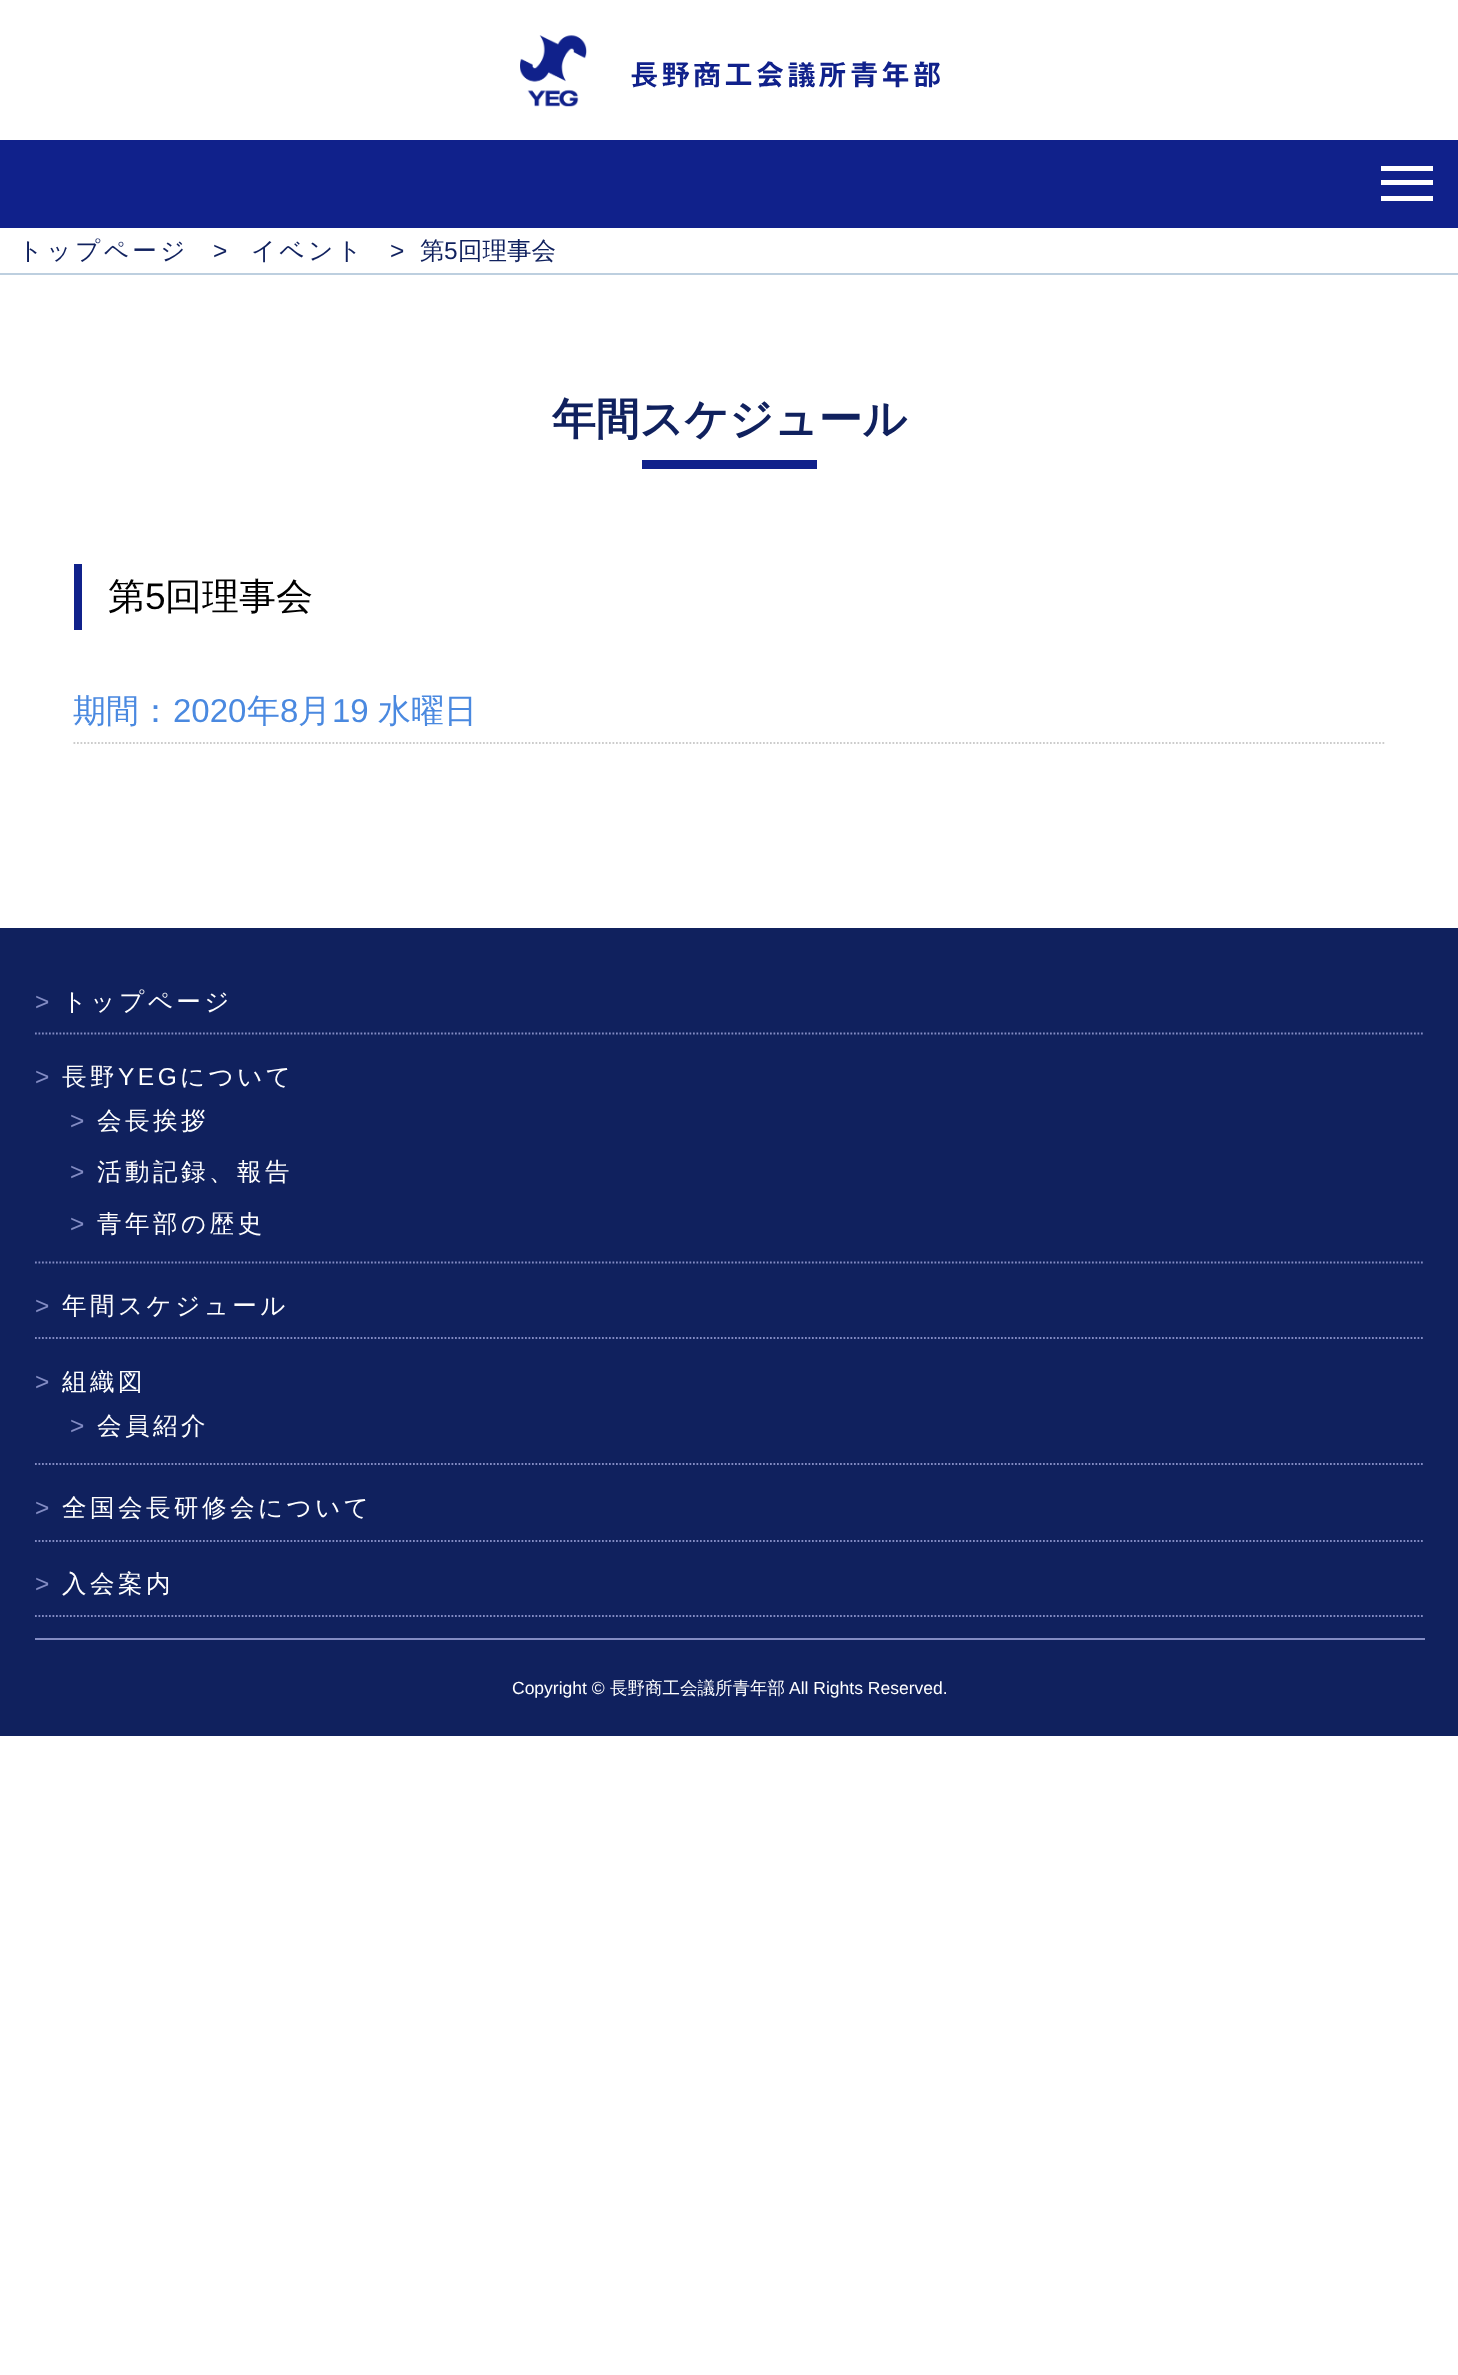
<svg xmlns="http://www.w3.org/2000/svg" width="1458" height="2375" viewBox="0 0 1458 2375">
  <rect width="100%" height="100%" fill="rgb(255,255,255)"/>
  <image x="520" y="35" width="420" height="72" href="pic1.png"/>
  <rect x="0" y="140" width="1458" height="88" fill="rgb(16,33,139)"/>
  <rect x="1381" y="166" width="52" height="5" fill="rgb(255,255,255)"/>
  <rect x="1381" y="180" width="52" height="5" fill="rgb(255,255,255)"/>
  <rect x="1381" y="196" width="52" height="5" fill="rgb(255,255,255)"/>
  <rect x="0" y="273" width="1458" height="2" fill="rgb(189,207,223)"/>
  <text x="18" y="259" font-family="WenQuanYi Zen Hei" font-size="24.5" font-weight="500" letter-spacing="3.5" fill="rgb(16,33,94)">トップページ</text>
  <text x="213" y="259" font-family="Liberation Sans" font-size="24.5" fill="rgb(16,33,94)">&gt;</text>
  <text x="251" y="259" font-family="WenQuanYi Zen Hei" font-size="24.5" font-weight="500" letter-spacing="3.5" fill="rgb(16,33,94)">イベント</text>
  <text x="390" y="259" font-family="Liberation Sans" font-size="24.5" fill="rgb(16,33,94)">&gt;</text>
  <text x="420" y="259" font-family="WenQuanYi Zen Hei" font-size="24.5" font-weight="500" fill="rgb(16,33,94)">第</text>
  <text x="444" y="259" font-family="Liberation Sans" font-size="24.5" fill="rgb(16,33,94)">5</text>
  <text x="458" y="259" font-family="WenQuanYi Zen Hei" font-size="24.5" font-weight="500" fill="rgb(16,33,94)">回理事会</text>
  <text x="552" y="434" font-family="WenQuanYi Zen Hei" font-size="43.75" font-weight="bold" fill="rgb(16,33,94)">年間スケジュール</text>
  <rect x="642" y="460" width="175" height="9" fill="rgb(16,33,139)"/>
  <rect x="74" y="564" width="8" height="66" fill="rgb(16,33,139)"/>
  <text x="108" y="609" font-family="WenQuanYi Zen Hei" font-size="37" font-weight="500" fill="rgb(0,0,0)">第</text>
  <text x="145" y="609" font-family="Liberation Sans" font-size="37" fill="rgb(0,0,0)">5</text>
  <text x="165" y="609" font-family="WenQuanYi Zen Hei" font-size="37" font-weight="500" fill="rgb(0,0,0)">回理事会</text>
  <path d="M73.5 743H1386" fill="none" stroke="rgb(204,204,204)" stroke-width="1.8" stroke-dasharray="1.75 1.75"/>
  <text x="73" y="722" font-family="WenQuanYi Zen Hei" font-size="33" font-weight="500" fill="rgb(74,137,224)">期間：</text>
  <text x="173" y="722" font-family="Liberation Sans" font-size="33" fill="rgb(74,137,224)">2020</text>
  <text x="247" y="722" font-family="WenQuanYi Zen Hei" font-size="33" font-weight="500" fill="rgb(74,137,224)">年</text>
  <text x="280" y="722" font-family="Liberation Sans" font-size="33" fill="rgb(74,137,224)">8</text>
  <text x="298" y="722" font-family="WenQuanYi Zen Hei" font-size="33" font-weight="500" fill="rgb(74,137,224)">月</text>
  <text x="332" y="722" font-family="Liberation Sans" font-size="33" fill="rgb(74,137,224)">19</text>
  <text x="378" y="722" font-family="WenQuanYi Zen Hei" font-size="33" font-weight="500" fill="rgb(74,137,224)">水曜日</text>
  <rect x="0" y="928" width="1458" height="808" fill="rgb(16,33,94)"/>
  <path d="M35 1033.5H1424.5" fill="none" stroke="rgb(131,140,195)" stroke-width="1.8" stroke-dasharray="1.75 1.75"/>
  <text x="35" y="1010" font-family="Liberation Sans" font-size="24.5" letter-spacing="3.5" fill="rgb(131,140,195)">&gt;</text>
  <text x="62" y="1010" font-family="WenQuanYi Zen Hei" font-size="24.5" font-weight="500" letter-spacing="3.5" fill="rgb(255,255,255)">トップページ</text>
  <path d="M35 1262.5H1424.5" fill="none" stroke="rgb(131,140,195)" stroke-width="1.8" stroke-dasharray="1.75 1.75"/>
  <text x="35" y="1085" font-family="Liberation Sans" font-size="24.5" letter-spacing="3.5" fill="rgb(131,140,195)">&gt;</text>
  <text x="62" y="1085" font-family="WenQuanYi Zen Hei" font-size="24.5" font-weight="500" letter-spacing="3.5" fill="rgb(255,255,255)">長野</text>
  <text x="118" y="1085" font-family="Liberation Sans" font-size="24.5" letter-spacing="3.5" fill="rgb(255,255,255)">YEG</text>
  <text x="180" y="1085" font-family="WenQuanYi Zen Hei" font-size="24.5" font-weight="500" letter-spacing="3.5" fill="rgb(255,255,255)">について</text>
  <text x="70" y="1129" font-family="Liberation Sans" font-size="24.5" letter-spacing="3.5" fill="rgb(131,140,195)">&gt;</text>
  <text x="97" y="1129" font-family="WenQuanYi Zen Hei" font-size="24.5" font-weight="500" letter-spacing="3.5" fill="rgb(255,255,255)">会長挨拶</text>
  <text x="70" y="1180" font-family="Liberation Sans" font-size="24.5" letter-spacing="3.5" fill="rgb(131,140,195)">&gt;</text>
  <text x="97" y="1180" font-family="WenQuanYi Zen Hei" font-size="24.5" font-weight="500" letter-spacing="3.5" fill="rgb(255,255,255)">活動記録、報告</text>
  <text x="70" y="1232" font-family="Liberation Sans" font-size="24.5" letter-spacing="3.5" fill="rgb(131,140,195)">&gt;</text>
  <text x="97" y="1232" font-family="WenQuanYi Zen Hei" font-size="24.5" font-weight="500" letter-spacing="3.5" fill="rgb(255,255,255)">青年部の歴史</text>
  <path d="M35 1338H1424.5" fill="none" stroke="rgb(131,140,195)" stroke-width="1.8" stroke-dasharray="1.75 1.75"/>
  <text x="35" y="1314" font-family="Liberation Sans" font-size="24.5" letter-spacing="3.5" fill="rgb(131,140,195)">&gt;</text>
  <text x="62" y="1314" font-family="WenQuanYi Zen Hei" font-size="24.5" font-weight="500" letter-spacing="3.5" fill="rgb(255,255,255)">年間スケジュール</text>
  <path d="M35 1464H1424.5" fill="none" stroke="rgb(131,140,195)" stroke-width="1.8" stroke-dasharray="1.75 1.75"/>
  <text x="35" y="1390" font-family="Liberation Sans" font-size="24.5" letter-spacing="3.5" fill="rgb(131,140,195)">&gt;</text>
  <text x="62" y="1390" font-family="WenQuanYi Zen Hei" font-size="24.5" font-weight="500" letter-spacing="3.5" fill="rgb(255,255,255)">組織図</text>
  <text x="70" y="1434" font-family="Liberation Sans" font-size="24.5" letter-spacing="3.5" fill="rgb(131,140,195)">&gt;</text>
  <text x="97" y="1434" font-family="WenQuanYi Zen Hei" font-size="24.5" font-weight="500" letter-spacing="3.5" fill="rgb(255,255,255)">会員紹介</text>
  <path d="M35 1541H1424.5" fill="none" stroke="rgb(131,140,195)" stroke-width="1.8" stroke-dasharray="1.75 1.75"/>
  <text x="35" y="1516" font-family="Liberation Sans" font-size="24.5" letter-spacing="3.5" fill="rgb(131,140,195)">&gt;</text>
  <text x="62" y="1516" font-family="WenQuanYi Zen Hei" font-size="24.5" font-weight="500" letter-spacing="3.5" fill="rgb(255,255,255)">全国会長研修会について</text>
  <path d="M35 1616H1424.5" fill="none" stroke="rgb(131,140,195)" stroke-width="1.8" stroke-dasharray="1.75 1.75"/>
  <text x="35" y="1592" font-family="Liberation Sans" font-size="24.5" letter-spacing="3.5" fill="rgb(131,140,195)">&gt;</text>
  <text x="62" y="1592" font-family="WenQuanYi Zen Hei" font-size="24.5" font-weight="500" letter-spacing="3.5" fill="rgb(255,255,255)">入会案内</text>
  <rect x="35" y="1638" width="1390" height="2" fill="rgb(131,140,195)"/>
  <text x="512" y="1694" font-family="Liberation Sans" font-size="17.5" fill="rgb(255,255,255)">Copyright ©</text>
  <text x="610" y="1694" font-family="WenQuanYi Zen Hei" font-size="17.5" font-weight="500" fill="rgb(255,255,255)">長野商工会議所青年部</text>
  <text x="789" y="1694" font-family="Liberation Sans" font-size="17.5" fill="rgb(255,255,255)">All Rights Reserved.</text>
</svg>
